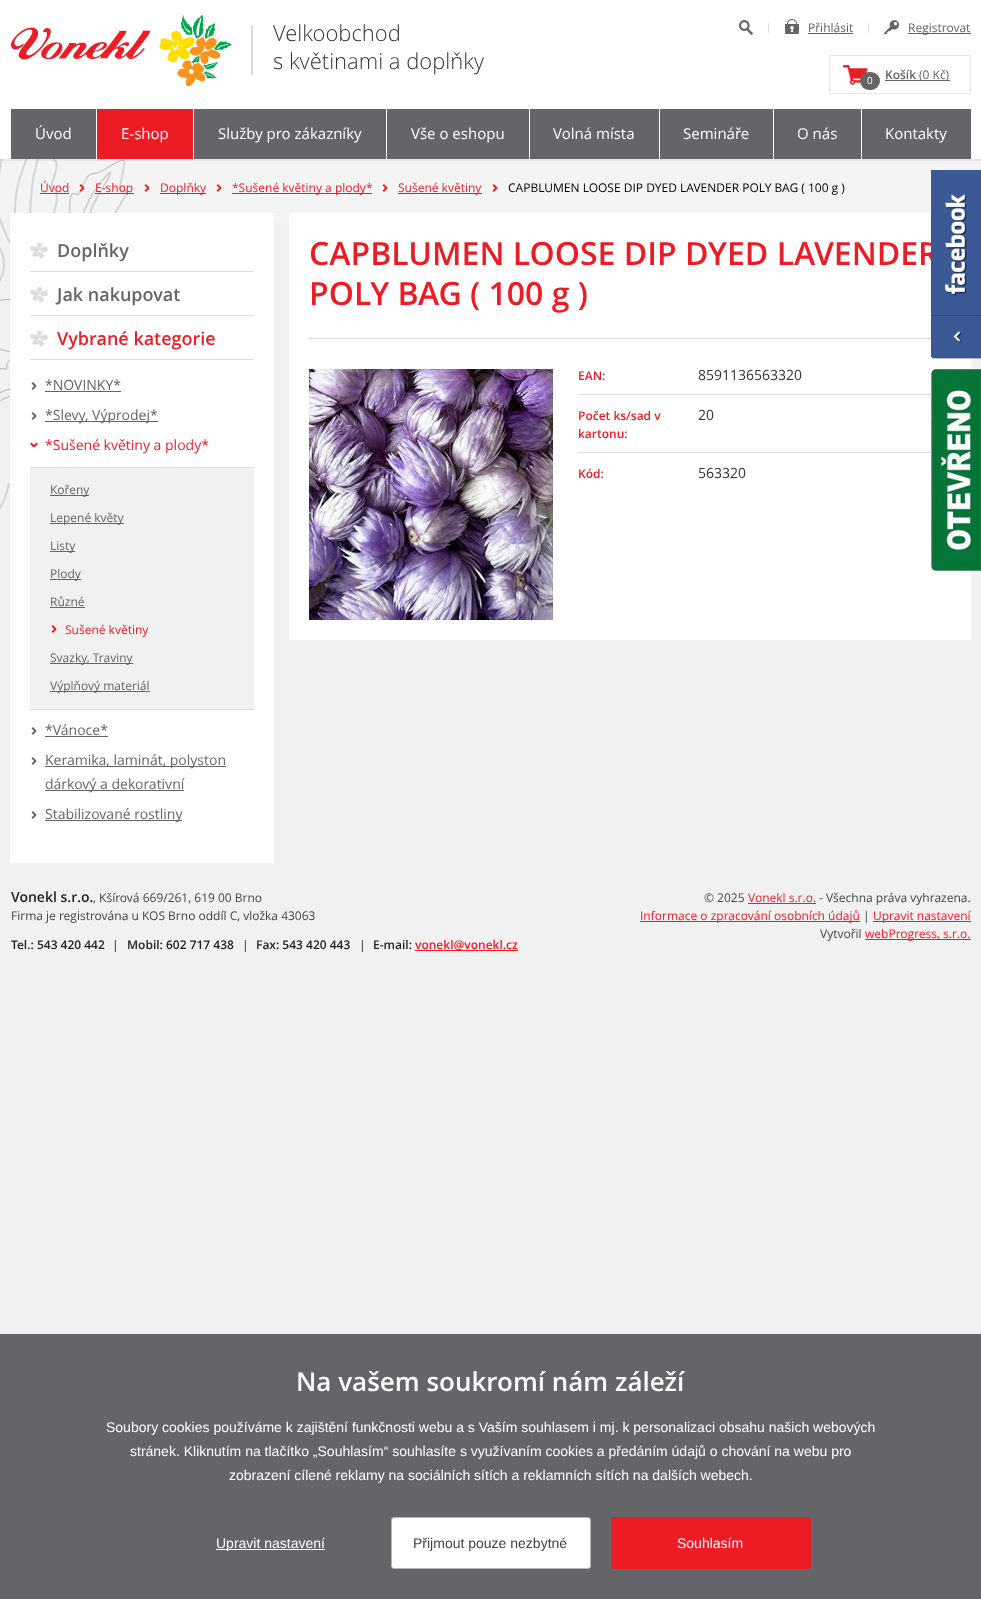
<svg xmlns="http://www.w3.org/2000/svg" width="981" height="1599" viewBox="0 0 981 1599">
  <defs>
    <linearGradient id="g1" gradientUnits="userSpaceOnUse" x1="491" y1="159" x2="491" y2="536"><stop offset="0" stop-color="rgb(244,244,244)"/><stop offset="1" stop-color="rgb(241,241,241)"/></linearGradient>
  </defs>
  <rect width="100%" height="100%" fill="rgb(241,241,241)"/>
  <rect x="0" y="159" width="981" height="63" fill="url(#g1)"/>
  <image x="0" y="159" width="128" height="350" href="pic6.png"/>
  <rect x="0" y="159" width="981" height="2" fill="rgba(0,0,0,0.05)"/>
  <rect x="0" y="0" width="981" height="159" fill="rgb(255,255,255)"/>
  <image x="11" y="15" width="221" height="71" href="pic1.png"/>
  <rect x="251" y="25" width="2" height="50" fill="rgb(221,221,221)"/>
  <g font-family="Open Sans" font-size="22" font-weight="300" fill="rgb(51,51,51)">
    <text>
      <tspan x="273" y="41">Velkoobchod</tspan>
      <tspan x="273" y="69">s květinami a doplňky</tspan>
    </text>
  </g>
  <image x="739" y="20" width="14" height="15" href="pic2.png"/>
  <rect x="768" y="23" width="1" height="10" fill="rgb(221,221,221)"/>
  <image x="785" y="19" width="14" height="15" href="pic3.png"/>
  <text x="808" y="32" font-family="Open Sans" font-size="12" fill="rgb(100,100,105)">Přihlásit</text>
  <rect x="808" y="33" width="45" height="1" fill="rgb(100,100,105)"/>
  <rect x="868" y="23" width="1" height="10" fill="rgb(221,221,221)"/>
  <image x="884" y="20" width="15" height="15" href="pic4.png"/>
  <rect x="908" y="33" width="63" height="1" fill="rgb(100,100,105)"/>
  <text x="908" y="32" font-family="Open Sans" font-size="12" fill="rgb(100,100,105)">Registrovat</text>
  <rect x="829.5" y="55.5" width="141" height="38" fill="none" stroke="rgb(231,231,231)"/>
  <image x="843" y="65" width="25" height="20" href="pic5.png"/>
  <rect x="860" y="72" width="20" height="18" rx="9" fill="rgb(100,100,105)"/>
  <text x="867" y="84" font-family="Open Sans" font-size="10" fill="rgb(255,255,255)">0</text>
  <text x="885" y="79" font-family="Open Sans" font-size="12" font-weight="600" fill="rgb(100,100,105)">Košík</text>
  <rect x="885" y="80" width="65" height="1" fill="rgb(100,100,105)"/>
  <text x="919" y="79" font-family="Open Sans" font-size="12" fill="rgb(100,100,105)">(0 Kč)</text>
  <rect x="11" y="109" width="960" height="50" fill="rgb(100,100,105)"/>
  <rect x="96" y="109" width="1" height="50" fill="rgb(255,255,255)"/>
  <text x="35" y="139" font-family="Open Sans" font-size="15" fill="rgb(255,255,255)">Úvod</text>
  <rect x="97" y="109" width="96" height="50" fill="rgb(237,28,36)"/>
  <rect x="193" y="109" width="1" height="50" fill="rgb(255,255,255)"/>
  <text x="121" y="139" font-family="Open Sans" font-size="15" fill="rgb(255,255,255)">E-shop</text>
  <rect x="386" y="109" width="1" height="50" fill="rgb(255,255,255)"/>
  <text x="218" y="139" font-family="Open Sans" font-size="15" fill="rgb(255,255,255)">Služby pro zákazníky</text>
  <rect x="529" y="109" width="1" height="50" fill="rgb(255,255,255)"/>
  <text x="411" y="139" font-family="Open Sans" font-size="15" fill="rgb(255,255,255)">Vše o eshopu</text>
  <rect x="659" y="109" width="1" height="50" fill="rgb(255,255,255)"/>
  <text x="553" y="139" font-family="Open Sans" font-size="15" fill="rgb(255,255,255)">Volná místa</text>
  <rect x="773" y="109" width="1" height="50" fill="rgb(255,255,255)"/>
  <text x="683" y="139" font-family="Open Sans" font-size="15" fill="rgb(255,255,255)">Semináře</text>
  <rect x="861" y="109" width="1" height="50" fill="rgb(255,255,255)"/>
  <g font-family="Open Sans" font-size="15" fill="rgb(255,255,255)">
    <text x="797" y="139">O nás</text>
    <text x="885" y="139">Kontakty</text>
  </g>
  <text x="40" y="192" font-family="Open Sans" font-size="12" fill="rgb(237,28,36)">Úvod</text>
  <rect x="40" y="193" width="29" height="1" fill="rgb(237,28,36)"/>
  <image x="79" y="184" width="6" height="8" href="pic7.png"/>
  <rect x="95" y="193" width="39" height="1" fill="rgb(237,28,36)"/>
  <text x="95" y="192" font-family="Open Sans" font-size="12" fill="rgb(237,28,36)">E-shop</text>
  <image x="144" y="184" width="6" height="8" href="pic8.png"/>
  <rect x="160" y="193" width="46" height="1" fill="rgb(237,28,36)"/>
  <text x="160" y="192" font-family="Open Sans" font-size="12" fill="rgb(237,28,36)">Doplňky</text>
  <image x="216" y="184" width="6" height="8" href="pic8.png"/>
  <rect x="232" y="193" width="140" height="1" fill="rgb(237,28,36)"/>
  <text x="232" y="192" font-family="Open Sans" font-size="12" fill="rgb(237,28,36)">*Sušené květiny a plody*</text>
  <image x="382" y="184" width="6" height="8" href="pic8.png"/>
  <rect x="398" y="193" width="84" height="1" fill="rgb(237,28,36)"/>
  <text x="398" y="192" font-family="Open Sans" font-size="12" fill="rgb(237,28,36)">Sušené květiny</text>
  <image x="492" y="184" width="6" height="8" href="pic8.png"/>
  <text x="508" y="192" font-family="Open Sans" font-size="12" fill="rgb(0,0,0)">CAPBLUMEN LOOSE DIP DYED LAVENDER POLY BAG ( 100 g )</text>
  <rect x="10" y="213" width="264" height="650" fill="rgb(255,255,255)"/>
  <rect x="30" y="271" width="224" height="1" fill="rgb(221,221,221)"/>
  <image x="30" y="243" width="18" height="15" href="pic9.png"/>
  <text x="57" y="257" font-family="Open Sans" font-size="18" font-weight="600" fill="rgb(100,100,105)">Doplňky</text>
  <rect x="30" y="315" width="224" height="1" fill="rgb(221,221,221)"/>
  <image x="30" y="287" width="18" height="15" href="pic9.png"/>
  <text x="57" y="301" font-family="Open Sans" font-size="18" font-weight="600" fill="rgb(100,100,105)">Jak nakupovat</text>
  <rect x="30" y="359" width="224" height="1" fill="rgb(221,221,221)"/>
  <image x="30" y="331" width="18" height="15" href="pic9.png"/>
  <text x="57" y="345" font-family="Open Sans" font-size="18" font-weight="600" fill="rgb(237,28,36)">Vybrané kategorie</text>
  <image x="31" y="382" width="6" height="8" href="pic10.png"/>
  <text x="45" y="390" font-family="Open Sans" font-size="14" fill="rgb(100,100,105)">*NOVINKY*</text>
  <rect x="45" y="391" width="76" height="1" fill="rgb(100,100,105)"/>
  <image x="31" y="412" width="6" height="8" href="pic10.png"/>
  <rect x="45" y="421" width="113" height="1" fill="rgb(100,100,105)"/>
  <text x="45" y="420" font-family="Open Sans" font-size="14" fill="rgb(100,100,105)">*Slevy, Výprodej*</text>
  <image x="30" y="442" width="8" height="6" href="pic11.png"/>
  <text x="45" y="450" font-family="Open Sans" font-size="14" fill="rgb(237,28,36)">*Sušené květiny a plody*</text>
  <rect x="30" y="468" width="224" height="241" fill="rgb(241,241,241)"/>
  <rect x="30" y="467" width="224" height="1" fill="rgb(221,221,221)"/>
  <rect x="30" y="709" width="224" height="1" fill="rgb(221,221,221)"/>
  <rect x="50" y="495" width="39" height="1" fill="rgb(100,100,105)"/>
  <text x="50" y="494" font-family="Open Sans" font-size="12" fill="rgb(100,100,105)">Kořeny</text>
  <rect x="50" y="523" width="74" height="1" fill="rgb(100,100,105)"/>
  <text x="50" y="522" font-family="Open Sans" font-size="12" fill="rgb(100,100,105)">Lepené květy</text>
  <rect x="50" y="551" width="25" height="1" fill="rgb(100,100,105)"/>
  <text x="50" y="550" font-family="Open Sans" font-size="12" fill="rgb(100,100,105)">Listy</text>
  <rect x="50" y="579" width="31" height="1" fill="rgb(100,100,105)"/>
  <g font-family="Open Sans" font-size="12" fill="rgb(100,100,105)">
    <text x="50" y="578">Plody</text>
    <text x="50" y="606">Různé</text>
  </g>
  <rect x="50" y="607" width="35" height="1" fill="rgb(100,100,105)"/>
  <image x="51" y="625" width="6" height="8" href="pic12.png"/>
  <text x="65" y="634" font-family="Open Sans" font-size="12" fill="rgb(237,28,36)">Sušené květiny</text>
  <rect x="50" y="663" width="83" height="1" fill="rgb(100,100,105)"/>
  <text x="50" y="662" font-family="Open Sans" font-size="12" fill="rgb(100,100,105)">Svazky, Traviny</text>
  <rect x="50" y="691" width="100" height="1" fill="rgb(100,100,105)"/>
  <text x="50" y="690" font-family="Open Sans" font-size="12" fill="rgb(100,100,105)">Výplňový materiál</text>
  <image x="31" y="727" width="6" height="8" href="pic10.png"/>
  <text x="45" y="735" font-family="Open Sans" font-size="14" fill="rgb(100,100,105)">*Vánoce*</text>
  <rect x="45" y="736" width="63" height="1" fill="rgb(100,100,105)"/>
  <image x="31" y="757" width="6" height="8" href="pic10.png"/>
  <rect x="45" y="766" width="181" height="1" fill="rgb(100,100,105)"/>
  <text x="45" y="765" font-family="Open Sans" font-size="14" fill="rgb(100,100,105)">Keramika, laminát, polyston</text>
  <rect x="45" y="790" width="139" height="1" fill="rgb(100,100,105)"/>
  <text x="45" y="789" font-family="Open Sans" font-size="14" fill="rgb(100,100,105)">dárkový a dekorativní</text>
  <image x="31" y="811" width="6" height="8" href="pic10.png"/>
  <rect x="45" y="820" width="137" height="1" fill="rgb(100,100,105)"/>
  <text x="45" y="819" font-family="Open Sans" font-size="14" fill="rgb(100,100,105)">Stabilizované rostliny</text>
  <rect x="289" y="213" width="682" height="427" fill="rgb(255,255,255)"/>
  <g font-family="Open Sans" font-size="32" font-weight="600" fill="rgb(237,28,36)">
    <text>
      <tspan x="309" y="265">CAPBLUMEN LOOSE DIP DYED LAVENDER</tspan>
      <tspan x="309" y="305">POLY BAG ( 100 g )</tspan>
    </text>
  </g>
  <rect x="309" y="338" width="622" height="1" fill="rgb(221,221,221)"/>
  <image x="309" y="369" width="244" height="251" href="pic13.png"/>
  <rect x="578" y="394" width="353" height="1" fill="rgb(221,221,221)"/>
  <text x="578" y="380" font-family="Open Sans" font-size="12" font-weight="600" fill="rgb(237,28,36)">EAN:</text>
  <text x="698" y="380" font-family="Open Sans" font-size="14" fill="rgb(51,51,51)">8591136563320</text>
  <rect x="578" y="452" width="353" height="1" fill="rgb(221,221,221)"/>
  <g font-family="Open Sans" font-size="12" font-weight="600" fill="rgb(237,28,36)">
    <text>
      <tspan x="578" y="420">Počet ks/sad v</tspan>
      <tspan x="578" y="438">kartonu:</tspan>
    </text>
  </g>
  <text x="698" y="420" font-family="Open Sans" font-size="14" fill="rgb(51,51,51)">20</text>
  <text x="578" y="478" font-family="Open Sans" font-size="12" font-weight="600" fill="rgb(237,28,36)">Kód:</text>
  <text x="698" y="478" font-family="Open Sans" font-size="14" fill="rgb(51,51,51)">563320</text>
  <image x="931" y="170" width="50" height="189" href="pic14.png"/>
  <image x="931" y="369" width="50" height="202" href="pic15.png"/>
  <text x="11" y="902" font-family="Open Sans" font-size="14" font-weight="600" fill="rgb(34,34,34)">Vonekl s.r.o.</text>
  <g font-family="Open Sans" font-size="12" fill="rgb(68,68,68)">
    <text x="93" y="902">, Kšírová 669/261, 619 00 Brno</text>
    <text x="11" y="920">Firma je registrována u KOS Brno oddíl C, vložka 43063</text>
  </g>
  <text x="11" y="949" font-family="Open Sans" font-size="12" font-weight="600" fill="rgb(34,34,34)">Tel.: 543 420 442</text>
  <text x="112" y="949" font-family="Open Sans" font-size="12" fill="rgb(34,34,34)">|</text>
  <text x="127" y="949" font-family="Open Sans" font-size="12" font-weight="600" fill="rgb(34,34,34)">Mobil: 602 717 438</text>
  <text x="242" y="949" font-family="Open Sans" font-size="12" fill="rgb(34,34,34)">|</text>
  <text x="256" y="949" font-family="Open Sans" font-size="12" font-weight="600" fill="rgb(34,34,34)">Fax: 543 420 443</text>
  <text x="359" y="949" font-family="Open Sans" font-size="12" fill="rgb(34,34,34)">|</text>
  <text x="373" y="949" font-family="Open Sans" font-size="12" font-weight="600" fill="rgb(34,34,34)">E-mail:</text>
  <text x="415" y="949" font-family="Open Sans" font-size="12" font-weight="600" fill="rgb(237,28,36)">vonekl@vonekl.cz</text>
  <rect x="415" y="950" width="103" height="1" fill="rgb(237,28,36)"/>
  <text x="704" y="902" font-family="Open Sans" font-size="12" fill="rgb(68,68,68)">© 2025</text>
  <text x="748" y="902" font-family="Open Sans" font-size="12" fill="rgb(237,28,36)">Vonekl s.r.o.</text>
  <rect x="748" y="903" width="68" height="1" fill="rgb(237,28,36)"/>
  <text x="819" y="902" font-family="Open Sans" font-size="12" fill="rgb(68,68,68)">- Všechna práva vyhrazena.</text>
  <rect x="640" y="921" width="220" height="1" fill="rgb(237,28,36)"/>
  <text x="640" y="920" font-family="Open Sans" font-size="12" fill="rgb(237,28,36)">Informace o zpracování osobních údajů</text>
  <text x="863" y="920" font-family="Open Sans" font-size="12" fill="rgb(68,68,68)">|</text>
  <rect x="873" y="921" width="98" height="1" fill="rgb(237,28,36)"/>
  <text x="873" y="920" font-family="Open Sans" font-size="12" fill="rgb(237,28,36)">Upravit nastavení</text>
  <text x="820" y="938" font-family="Open Sans" font-size="12" fill="rgb(68,68,68)">Vytvořil</text>
  <rect x="865" y="939" width="106" height="1" fill="rgb(237,28,36)"/>
  <text x="865" y="938" font-family="Open Sans" font-size="12" fill="rgb(237,28,36)">webProgress, s.r.o.</text>
  <rect x="0" y="1334" width="981" height="265" fill="rgb(100,100,105)"/>
  <text x="296" y="1391" font-family="Open Sans" font-size="26" font-weight="600" fill="rgb(255,255,255)">Na vašem soukromí nám záleží</text>
  <g font-family="Liberation Sans" font-size="14" fill="rgb(255,255,255)">
    <text x="106" y="1432">Soubory cookies používáme k zajištění funkčnosti webu a s Vaším souhlasem i mj. k personalizaci obsahu našich webových</text>
    <text x="130" y="1456">stránek. Kliknutím na tlačítko „Souhlasím“ souhlasíte s využívaním cookies a předáním údajů o chování na webu pro</text>
    <text x="229" y="1480">zobrazení cílené reklamy na sociálních sítích a reklamních sítích na dalších webech.</text>
  </g>
  <rect x="216" y="1549" width="109" height="1" fill="rgb(255,255,255)"/>
  <text x="216" y="1548" font-family="Liberation Sans" font-size="14" fill="rgb(255,255,255)">Upravit nastavení</text>
  <rect x="391.5" y="1517.5" width="199" height="51" rx="2.5" fill="rgb(255,255,255)" stroke="rgb(180,180,180)"/>
  <text x="413" y="1548" font-family="Liberation Sans" font-size="14" fill="rgb(68,68,68)">Přijmout pouze nezbytné</text>
  <rect x="611.5" y="1517.5" width="199" height="51" rx="2.5" fill="rgb(237,28,36)" stroke="rgb(237,28,36)"/>
  <text x="677" y="1548" font-family="Liberation Sans" font-size="14" fill="rgb(255,255,255)">Souhlasím</text>
</svg>
